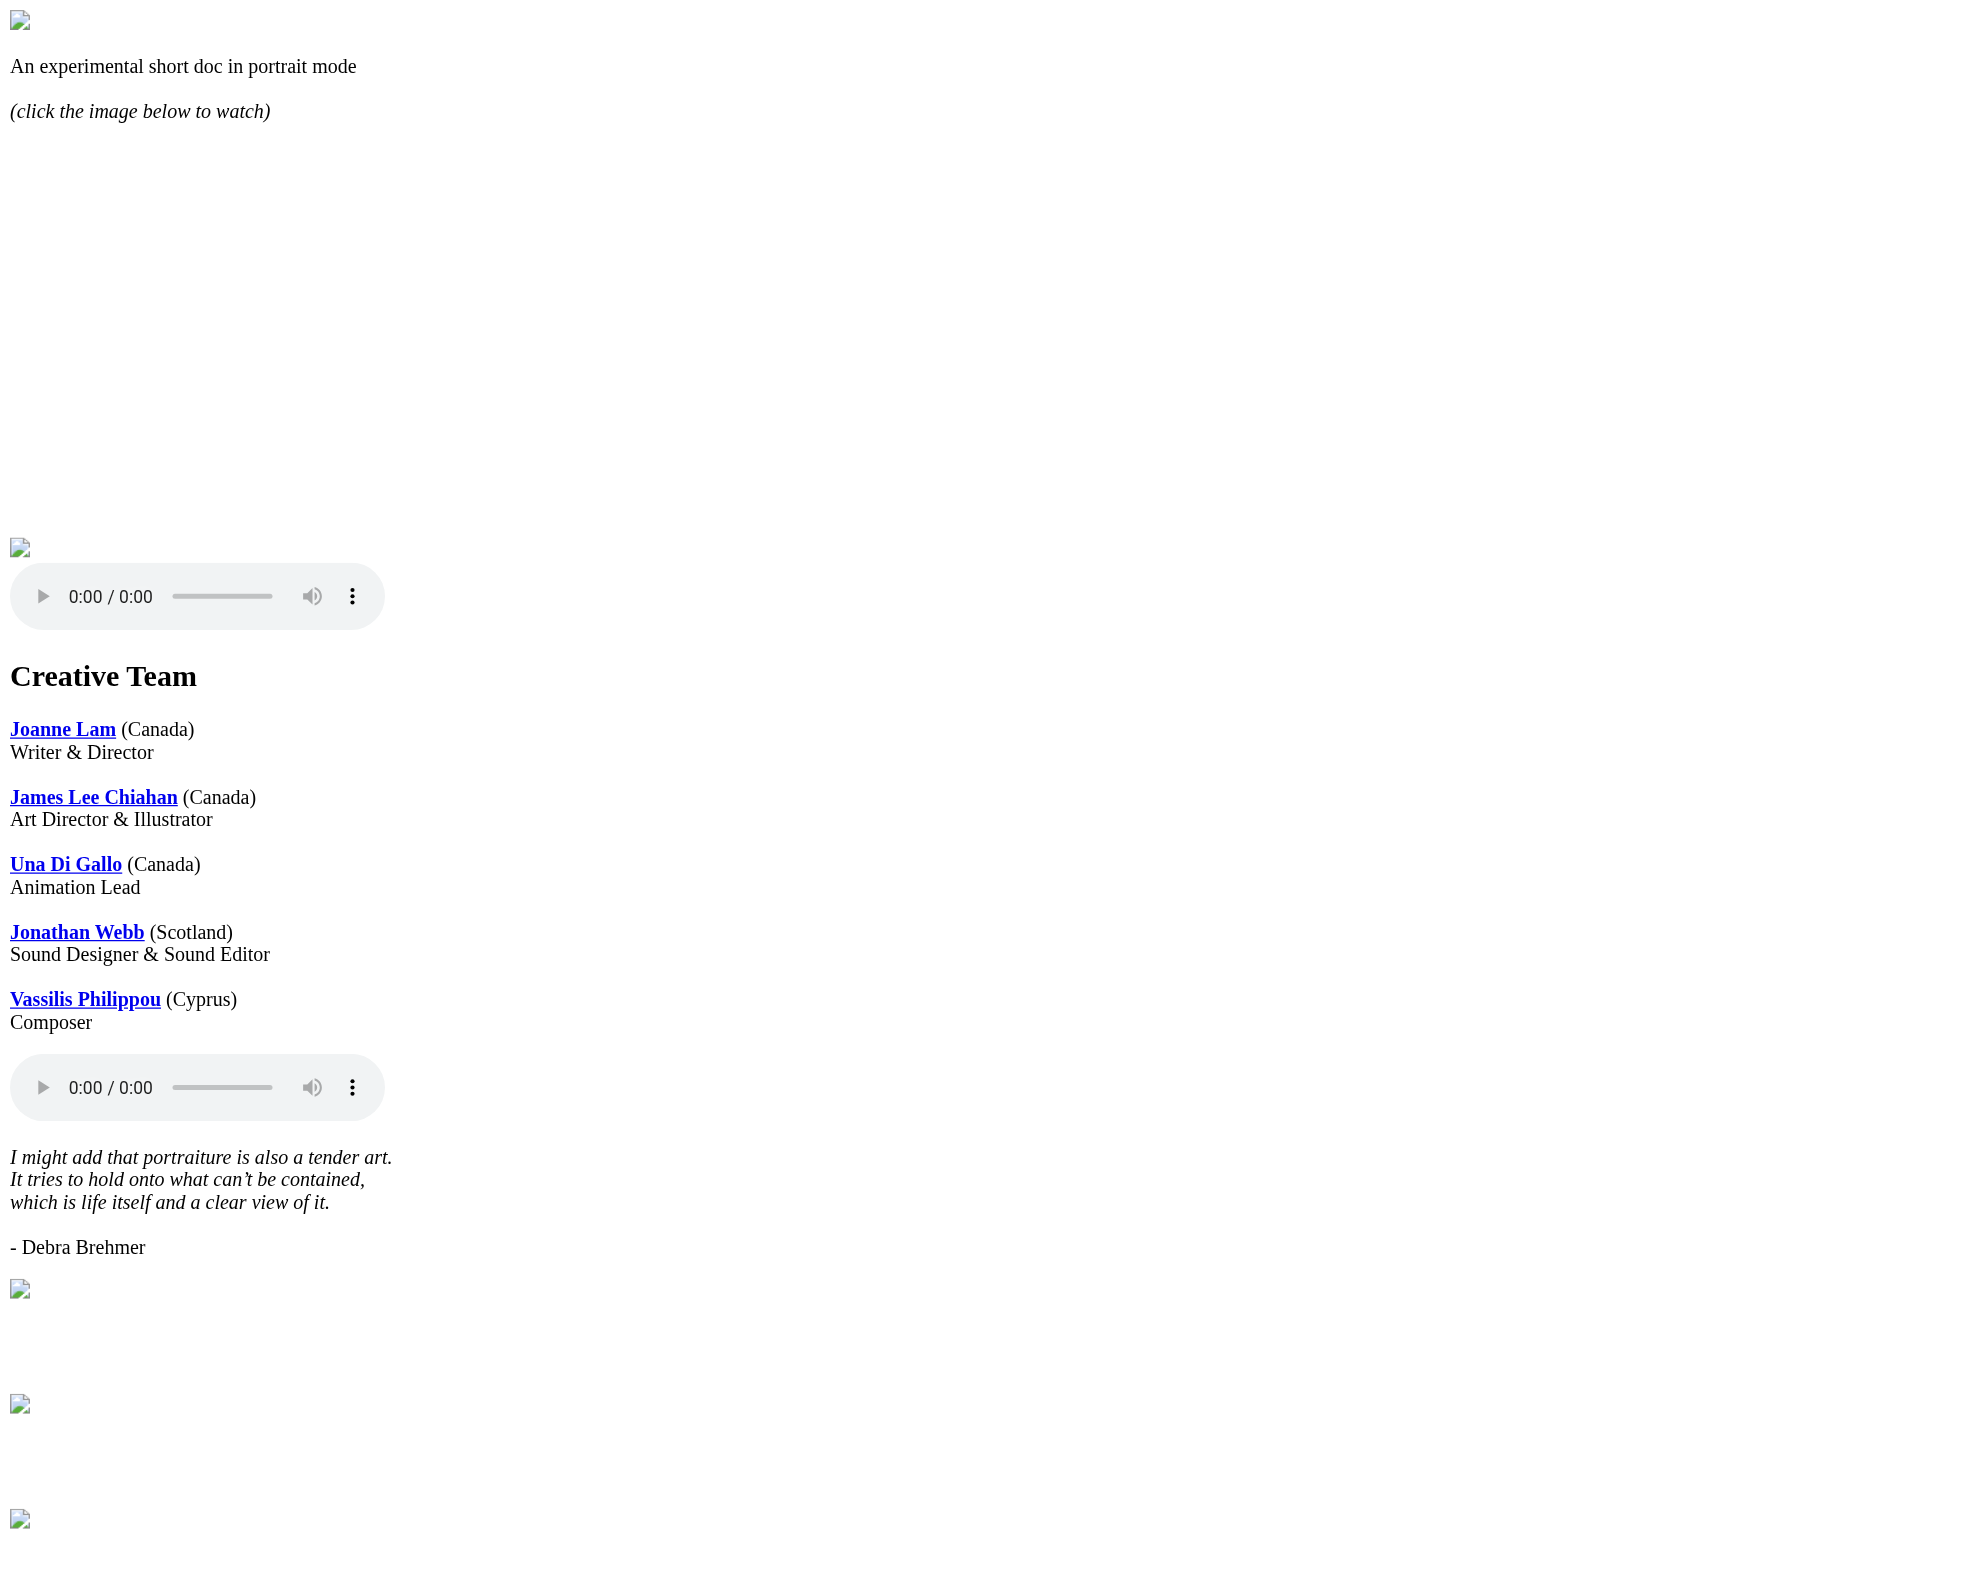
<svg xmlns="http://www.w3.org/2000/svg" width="1979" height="1579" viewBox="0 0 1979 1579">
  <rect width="100%" height="100%" fill="rgb(255,255,255)"/>
  <image x="10" y="10" width="381" height="1519" href="pic1.png"/>
</svg>
